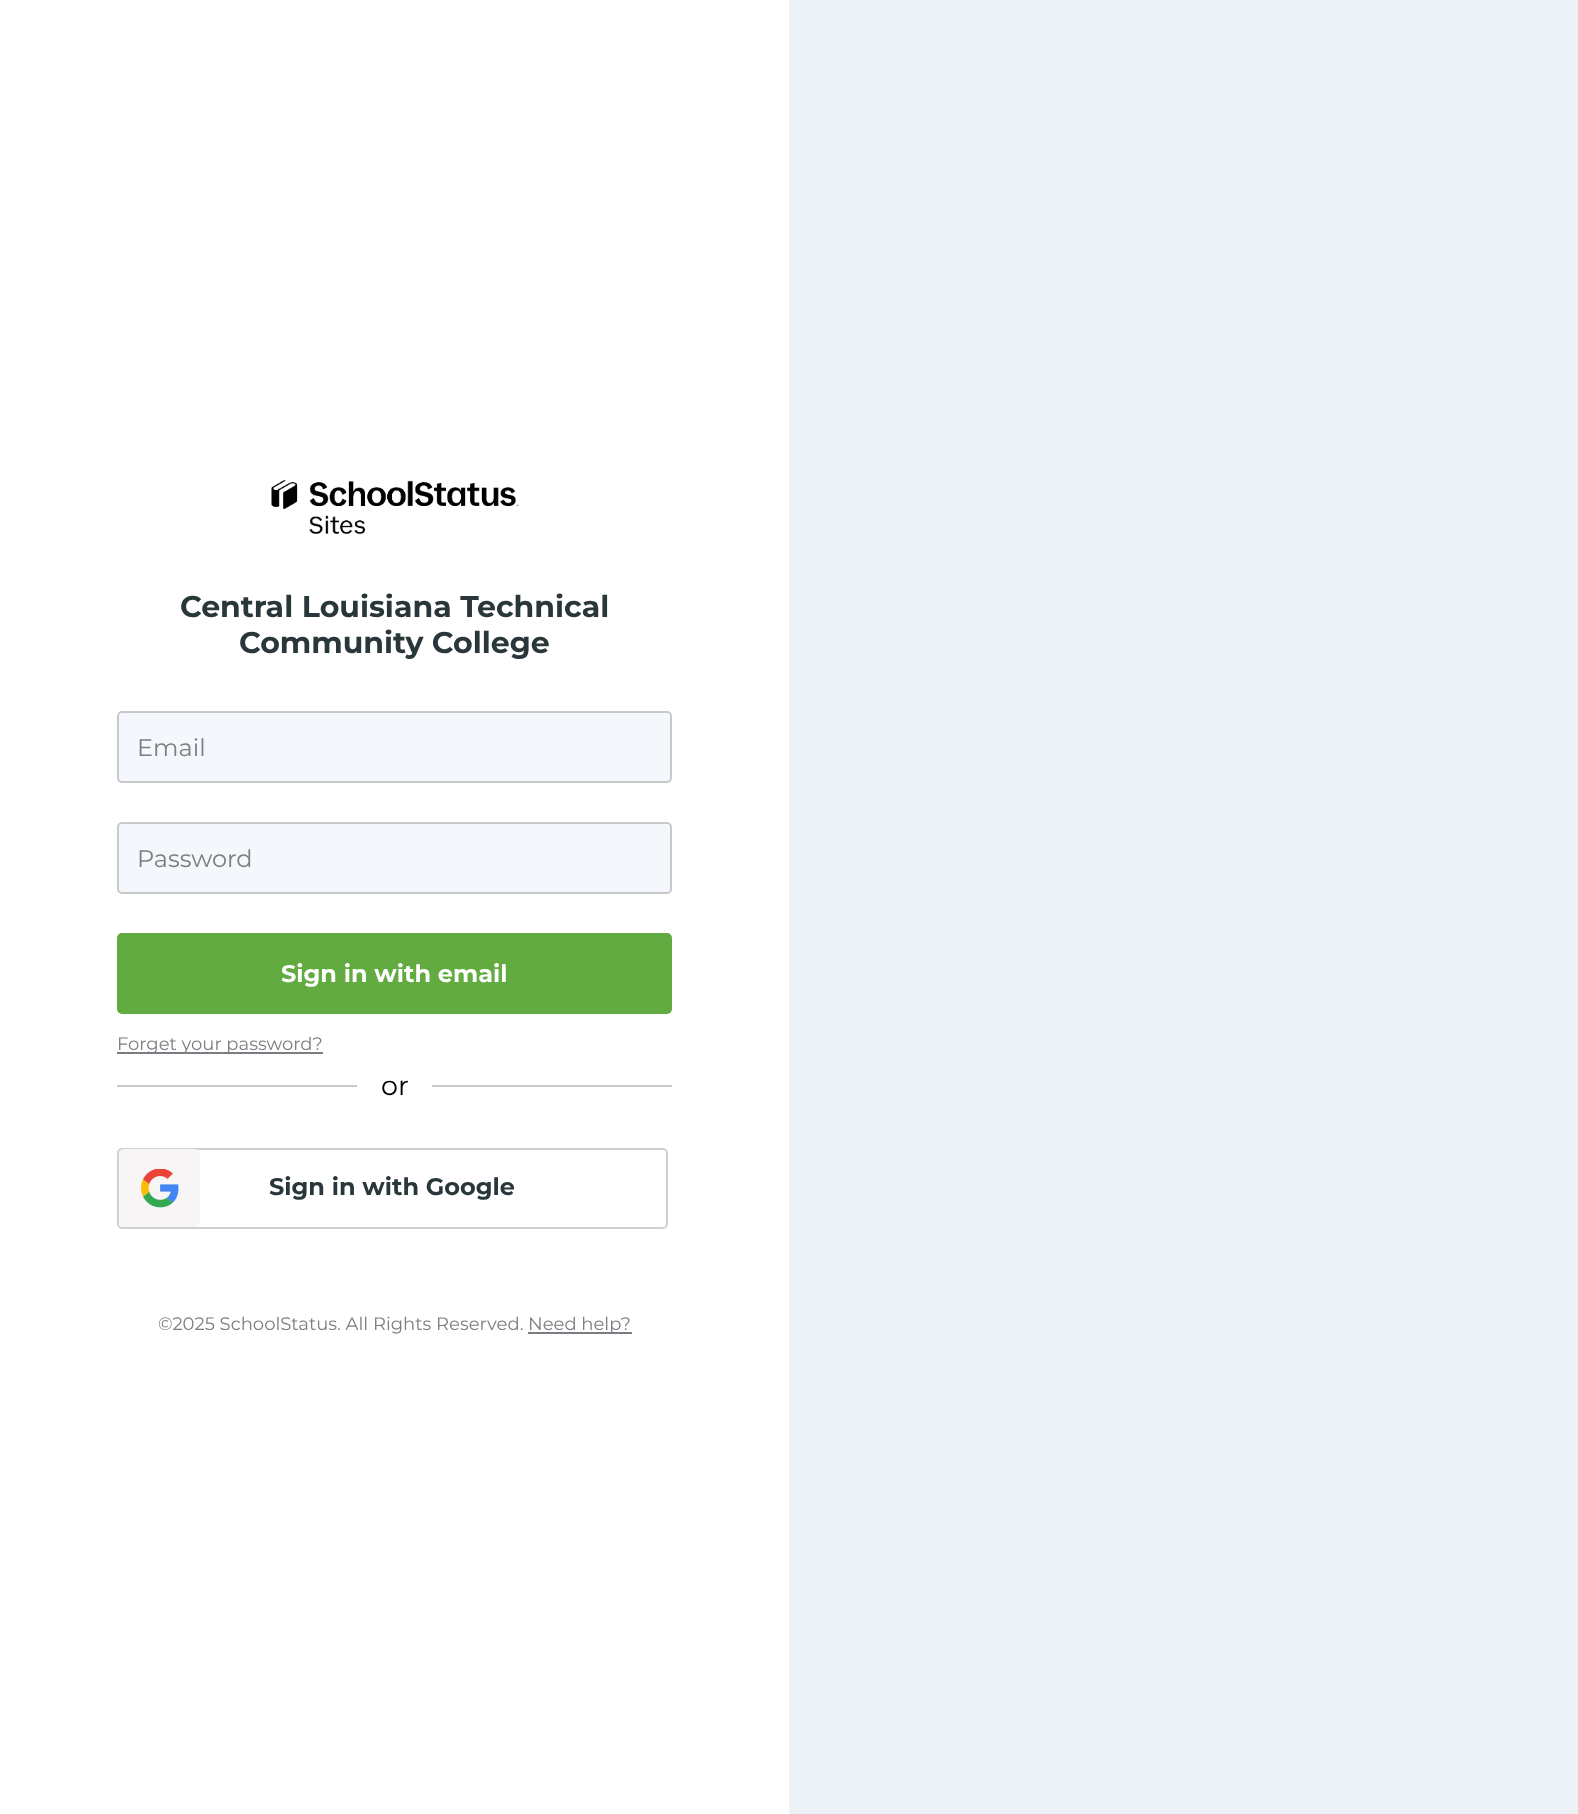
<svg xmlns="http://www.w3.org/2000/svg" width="1578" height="1814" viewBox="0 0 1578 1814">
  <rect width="100%" height="100%" fill="rgb(255,255,255)"/>
  <image x="271" y="480" width="248" height="55" href="pic1.png"/>
  <g font-family="Montserrat" font-size="30" font-weight="bold" fill="rgb(41,55,58)">
    <text x="180" y="617">Central Louisiana Technical</text>
    <text x="239" y="653">Community College</text>
  </g>
  <rect x="118" y="712" width="553" height="70" rx="4" fill="rgb(244,247,251)" stroke="rgb(201,201,201)" stroke-width="2"/>
  <text x="137" y="756" font-family="Montserrat" font-size="24" fill="rgb(124,125,130)">Email</text>
  <rect x="118" y="823" width="553" height="70" rx="4" fill="rgb(244,247,251)" stroke="rgb(201,201,201)" stroke-width="2"/>
  <text x="137" y="867" font-family="Montserrat" font-size="24" fill="rgb(124,125,130)">Password</text>
  <rect x="118" y="934" width="553" height="79" rx="4" fill="rgb(98,171,64)" stroke="rgb(98,171,64)" stroke-width="2"/>
  <text x="281" y="982" font-family="Montserrat" font-size="24" font-weight="bold" fill="rgb(255,255,255)">Sign in with email</text>
  <rect x="117" y="1052" width="206" height="2" fill="rgb(124,125,130)"/>
  <text x="117" y="1050" font-family="Montserrat" font-size="18" fill="rgb(124,125,130)">Forget your password?</text>
  <rect x="117" y="1085" width="240" height="2" fill="rgb(201,201,201)"/>
  <text x="381" y="1095" font-family="Montserrat" font-size="27" fill="rgb(0,0,0)">or</text>
  <rect x="432" y="1085" width="240" height="2" fill="rgb(201,201,201)"/>
  <rect x="118" y="1149" width="549" height="79" rx="4" fill="none" stroke="rgb(208,208,208)" stroke-width="2"/>
  <rect x="119" y="1149" width="81" height="78" rx="5" fill="rgb(247,245,245)"/>
  <image x="141" y="1169" width="38" height="39" href="pic2.png"/>
  <text x="269" y="1195" font-family="Montserrat" font-size="24" font-weight="bold" fill="rgb(41,55,58)">Sign in with Google</text>
  <text x="158" y="1330" font-family="Montserrat" font-size="18" fill="rgb(124,125,130)">©2025 SchoolStatus. All Rights Reserved.</text>
  <rect x="528" y="1332" width="104" height="2" fill="rgb(124,125,130)"/>
  <text x="528" y="1330" font-family="Montserrat" font-size="18" fill="rgb(124,125,130)">Need help?</text>
  <rect x="789" y="0" width="789" height="1814" fill="rgb(236,242,246)"/>
</svg>
